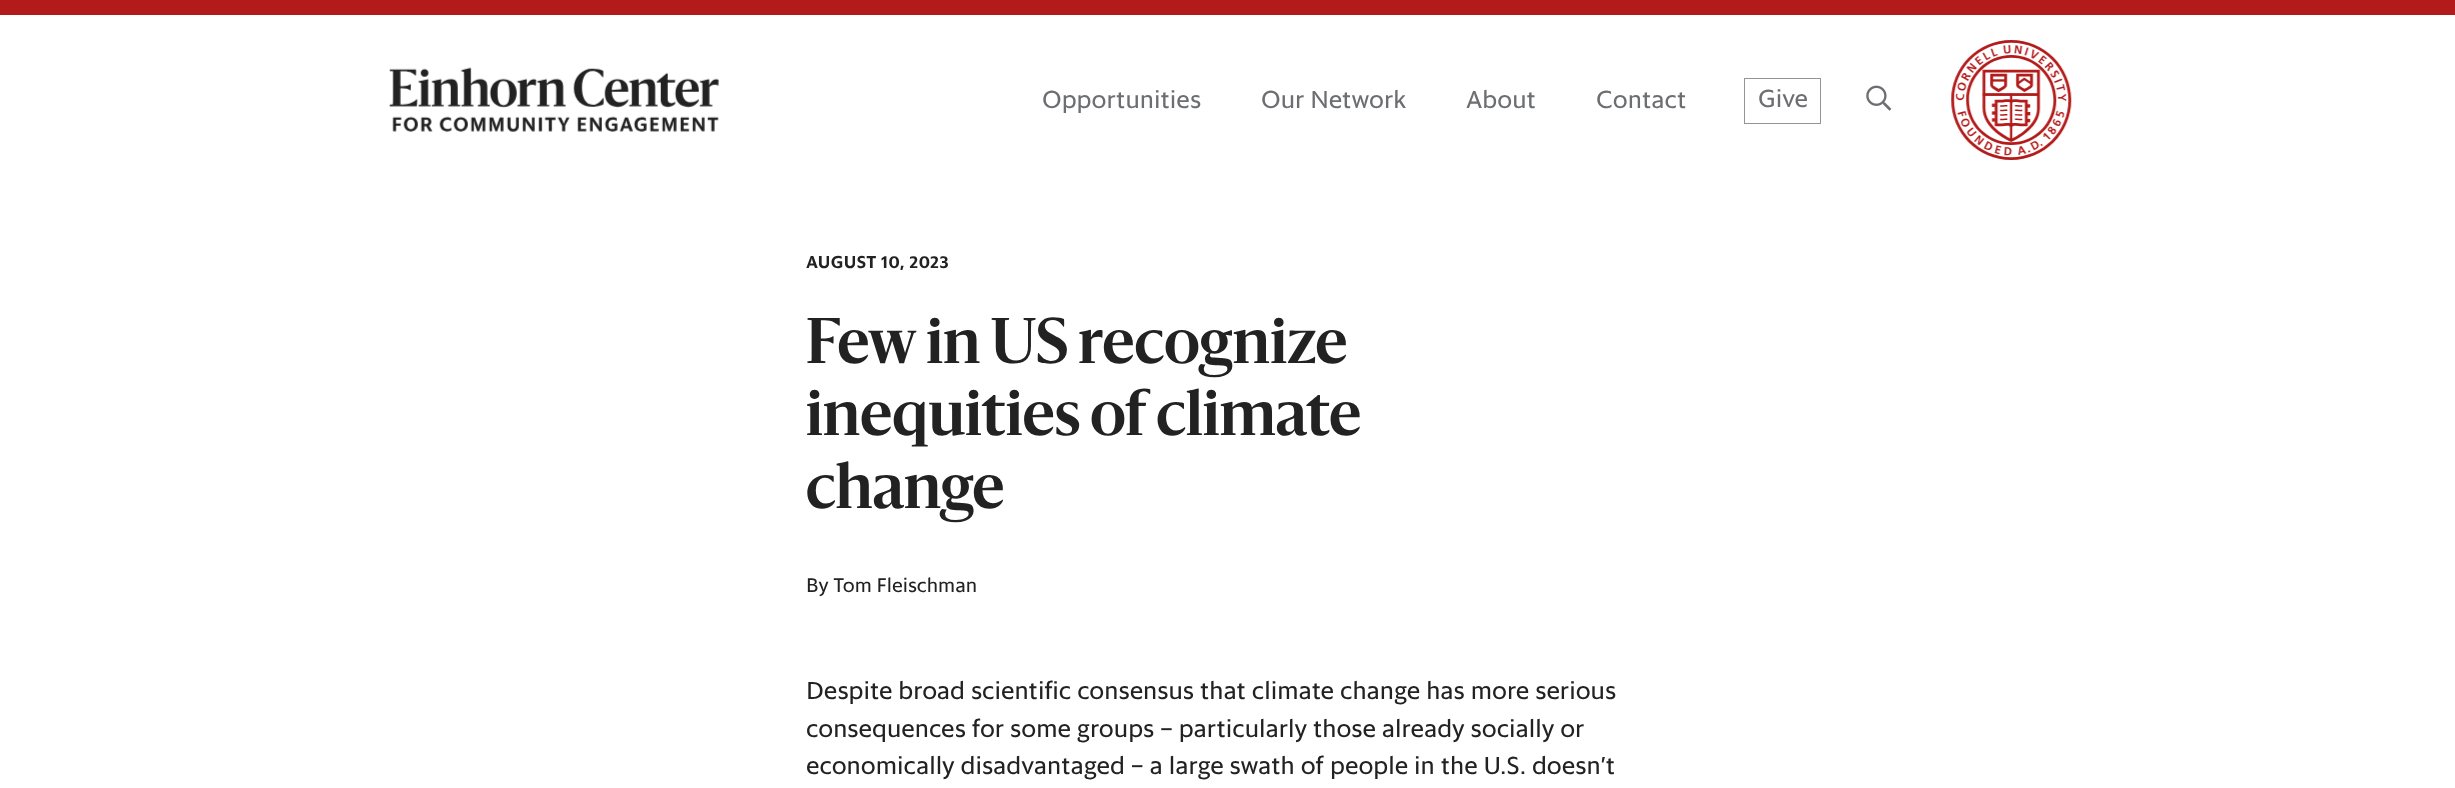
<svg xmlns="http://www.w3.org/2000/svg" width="2455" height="788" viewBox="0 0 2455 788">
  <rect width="100%" height="100%" fill="rgb(255,255,255)"/>
  <rect x="0" y="0" width="2455" height="15" fill="rgb(179,27,27)"/>
  <image x="389" y="67" width="330" height="65" href="pic1.png"/>
  <g font-family="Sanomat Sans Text" font-size="25" fill="rgb(109,110,113)">
    <text x="1042" y="108">Opportunities</text>
    <text x="1261" y="108">Our Network</text>
    <text x="1466" y="108">About</text>
    <text x="1596" y="108">Contact</text>
  </g>
  <rect x="1744.5" y="78.5" width="76" height="45" fill="none" stroke="rgb(147,147,154)"/>
  <text x="1758" y="107" font-family="Sanomat Sans Text" font-size="25" fill="rgb(109,110,113)">Give</text>
  <image x="1866" y="85" width="26" height="26" href="pic2.png"/>
  <image x="1951" y="40" width="121" height="120" href="pic3.png"/>
  <text x="806" y="268" font-family="Sanomat Sans Text" font-size="17.5" font-weight="600" letter-spacing="0.5" fill="rgb(34,34,34)">AUGUST 10, 2023</text>
  <g font-family="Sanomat" font-size="60" font-weight="600" fill="rgb(34,34,34)">
    <text>
      <tspan x="806" y="363">Few in US recognize</tspan>
      <tspan x="806" y="435">inequities of climate</tspan>
      <tspan x="806" y="508">change</tspan>
    </text>
  </g>
  <text x="806" y="592" font-family="Sanomat Sans Text" font-size="20" fill="rgb(34,34,34)">By Tom Fleischman</text>
  <g font-family="Sanomat Sans Text" font-size="25" fill="rgb(34,34,34)">
    <text>
      <tspan x="806" y="699">Despite broad scientific consensus that climate change has more serious</tspan>
      <tspan x="806" y="737">consequences for some groups – particularly those already socially or</tspan>
      <tspan x="806" y="774">economically disadvantaged – a large swath of people in the U.S. doesn’t</tspan>
    </text>
  </g>
</svg>
